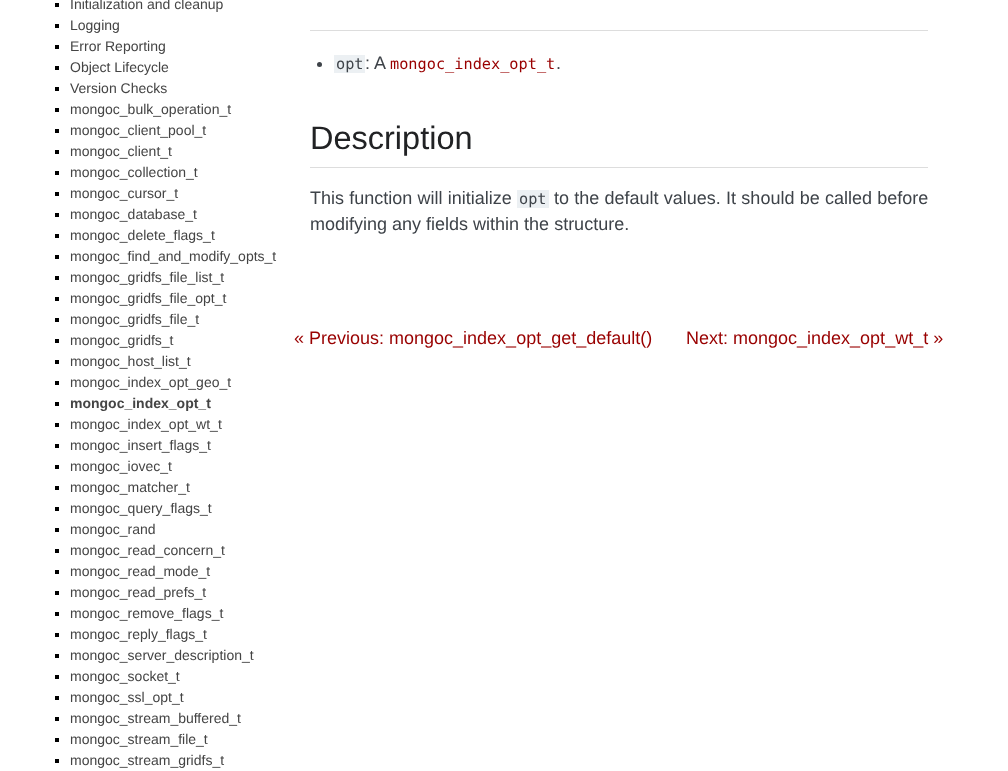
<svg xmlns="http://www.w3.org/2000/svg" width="1008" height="771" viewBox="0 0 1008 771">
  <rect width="100%" height="100%" fill="rgb(255,255,255)"/>
  <rect x="55" y="3" width="4" height="4" fill="rgb(0,0,0)"/>
  <text x="70" y="9" font-family="Liberation Sans" font-size="14" fill="rgb(68,68,68)">Initialization and cleanup</text>
  <rect x="55" y="24" width="4" height="4" fill="rgb(0,0,0)"/>
  <text x="70" y="30" font-family="Liberation Sans" font-size="14" fill="rgb(68,68,68)">Logging</text>
  <rect x="55" y="45" width="4" height="4" fill="rgb(0,0,0)"/>
  <text x="70" y="51" font-family="Liberation Sans" font-size="14" fill="rgb(68,68,68)">Error Reporting</text>
  <rect x="55" y="66" width="4" height="4" fill="rgb(0,0,0)"/>
  <text x="70" y="72" font-family="Liberation Sans" font-size="14" fill="rgb(68,68,68)">Object Lifecycle</text>
  <rect x="55" y="87" width="4" height="4" fill="rgb(0,0,0)"/>
  <text x="70" y="93" font-family="Liberation Sans" font-size="14" fill="rgb(68,68,68)">Version Checks</text>
  <rect x="55" y="108" width="4" height="4" fill="rgb(0,0,0)"/>
  <text x="70" y="114" font-family="Liberation Sans" font-size="14" fill="rgb(68,68,68)">mongoc_bulk_operation_t</text>
  <rect x="55" y="129" width="4" height="4" fill="rgb(0,0,0)"/>
  <text x="70" y="135" font-family="Liberation Sans" font-size="14" fill="rgb(68,68,68)">mongoc_client_pool_t</text>
  <rect x="55" y="150" width="4" height="4" fill="rgb(0,0,0)"/>
  <text x="70" y="156" font-family="Liberation Sans" font-size="14" fill="rgb(68,68,68)">mongoc_client_t</text>
  <rect x="55" y="171" width="4" height="4" fill="rgb(0,0,0)"/>
  <text x="70" y="177" font-family="Liberation Sans" font-size="14" fill="rgb(68,68,68)">mongoc_collection_t</text>
  <rect x="55" y="192" width="4" height="4" fill="rgb(0,0,0)"/>
  <text x="70" y="198" font-family="Liberation Sans" font-size="14" fill="rgb(68,68,68)">mongoc_cursor_t</text>
  <rect x="55" y="213" width="4" height="4" fill="rgb(0,0,0)"/>
  <text x="70" y="219" font-family="Liberation Sans" font-size="14" fill="rgb(68,68,68)">mongoc_database_t</text>
  <rect x="55" y="234" width="4" height="4" fill="rgb(0,0,0)"/>
  <text x="70" y="240" font-family="Liberation Sans" font-size="14" fill="rgb(68,68,68)">mongoc_delete_flags_t</text>
  <rect x="55" y="255" width="4" height="4" fill="rgb(0,0,0)"/>
  <text x="70" y="261" font-family="Liberation Sans" font-size="14" fill="rgb(68,68,68)">mongoc_find_and_modify_opts_t</text>
  <rect x="55" y="276" width="4" height="4" fill="rgb(0,0,0)"/>
  <text x="70" y="282" font-family="Liberation Sans" font-size="14" fill="rgb(68,68,68)">mongoc_gridfs_file_list_t</text>
  <rect x="55" y="297" width="4" height="4" fill="rgb(0,0,0)"/>
  <text x="70" y="303" font-family="Liberation Sans" font-size="14" fill="rgb(68,68,68)">mongoc_gridfs_file_opt_t</text>
  <rect x="55" y="318" width="4" height="4" fill="rgb(0,0,0)"/>
  <text x="70" y="324" font-family="Liberation Sans" font-size="14" fill="rgb(68,68,68)">mongoc_gridfs_file_t</text>
  <rect x="55" y="339" width="4" height="4" fill="rgb(0,0,0)"/>
  <text x="70" y="345" font-family="Liberation Sans" font-size="14" fill="rgb(68,68,68)">mongoc_gridfs_t</text>
  <rect x="55" y="360" width="4" height="4" fill="rgb(0,0,0)"/>
  <text x="70" y="366" font-family="Liberation Sans" font-size="14" fill="rgb(68,68,68)">mongoc_host_list_t</text>
  <rect x="55" y="381" width="4" height="4" fill="rgb(0,0,0)"/>
  <text x="70" y="387" font-family="Liberation Sans" font-size="14" fill="rgb(68,68,68)">mongoc_index_opt_geo_t</text>
  <rect x="55" y="402" width="4" height="4" fill="rgb(0,0,0)"/>
  <text x="70" y="408" font-family="Liberation Sans" font-size="14" font-weight="bold" fill="rgb(68,68,68)">mongoc_index_opt_t</text>
  <rect x="55" y="423" width="4" height="4" fill="rgb(0,0,0)"/>
  <text x="70" y="429" font-family="Liberation Sans" font-size="14" fill="rgb(68,68,68)">mongoc_index_opt_wt_t</text>
  <rect x="55" y="444" width="4" height="4" fill="rgb(0,0,0)"/>
  <text x="70" y="450" font-family="Liberation Sans" font-size="14" fill="rgb(68,68,68)">mongoc_insert_flags_t</text>
  <rect x="55" y="465" width="4" height="4" fill="rgb(0,0,0)"/>
  <text x="70" y="471" font-family="Liberation Sans" font-size="14" fill="rgb(68,68,68)">mongoc_iovec_t</text>
  <rect x="55" y="486" width="4" height="4" fill="rgb(0,0,0)"/>
  <text x="70" y="492" font-family="Liberation Sans" font-size="14" fill="rgb(68,68,68)">mongoc_matcher_t</text>
  <rect x="55" y="507" width="4" height="4" fill="rgb(0,0,0)"/>
  <text x="70" y="513" font-family="Liberation Sans" font-size="14" fill="rgb(68,68,68)">mongoc_query_flags_t</text>
  <rect x="55" y="528" width="4" height="4" fill="rgb(0,0,0)"/>
  <text x="70" y="534" font-family="Liberation Sans" font-size="14" fill="rgb(68,68,68)">mongoc_rand</text>
  <rect x="55" y="549" width="4" height="4" fill="rgb(0,0,0)"/>
  <text x="70" y="555" font-family="Liberation Sans" font-size="14" fill="rgb(68,68,68)">mongoc_read_concern_t</text>
  <rect x="55" y="570" width="4" height="4" fill="rgb(0,0,0)"/>
  <text x="70" y="576" font-family="Liberation Sans" font-size="14" fill="rgb(68,68,68)">mongoc_read_mode_t</text>
  <rect x="55" y="591" width="4" height="4" fill="rgb(0,0,0)"/>
  <text x="70" y="597" font-family="Liberation Sans" font-size="14" fill="rgb(68,68,68)">mongoc_read_prefs_t</text>
  <rect x="55" y="612" width="4" height="4" fill="rgb(0,0,0)"/>
  <text x="70" y="618" font-family="Liberation Sans" font-size="14" fill="rgb(68,68,68)">mongoc_remove_flags_t</text>
  <rect x="55" y="633" width="4" height="4" fill="rgb(0,0,0)"/>
  <text x="70" y="639" font-family="Liberation Sans" font-size="14" fill="rgb(68,68,68)">mongoc_reply_flags_t</text>
  <rect x="55" y="654" width="4" height="4" fill="rgb(0,0,0)"/>
  <text x="70" y="660" font-family="Liberation Sans" font-size="14" fill="rgb(68,68,68)">mongoc_server_description_t</text>
  <rect x="55" y="675" width="4" height="4" fill="rgb(0,0,0)"/>
  <text x="70" y="681" font-family="Liberation Sans" font-size="14" fill="rgb(68,68,68)">mongoc_socket_t</text>
  <rect x="55" y="696" width="4" height="4" fill="rgb(0,0,0)"/>
  <text x="70" y="702" font-family="Liberation Sans" font-size="14" fill="rgb(68,68,68)">mongoc_ssl_opt_t</text>
  <rect x="55" y="717" width="4" height="4" fill="rgb(0,0,0)"/>
  <text x="70" y="723" font-family="Liberation Sans" font-size="14" fill="rgb(68,68,68)">mongoc_stream_buffered_t</text>
  <rect x="55" y="738" width="4" height="4" fill="rgb(0,0,0)"/>
  <text x="70" y="744" font-family="Liberation Sans" font-size="14" fill="rgb(68,68,68)">mongoc_stream_file_t</text>
  <rect x="55" y="759" width="4" height="4" fill="rgb(0,0,0)"/>
  <text x="70" y="765" font-family="Liberation Sans" font-size="14" fill="rgb(68,68,68)">mongoc_stream_gridfs_t</text>
  <rect x="310" y="30" width="618" height="1" fill="rgb(221,221,221)"/>
  <circle cx="319.5" cy="64.5" r="2.5" fill="rgb(62,67,73)"/>
  <rect x="334" y="55" width="31" height="18" fill="rgb(236,240,243)"/>
  <text x="336" y="69" font-family="DejaVu Sans Mono" font-size="15.25" fill="rgb(62,67,73)">opt</text>
  <text x="365" y="69" font-family="Liberation Sans" font-size="18" fill="rgb(62,67,73)">: A</text>
  <text x="390" y="69" font-family="DejaVu Sans Mono" font-size="15.25" fill="rgb(153,0,0)">mongoc_index_opt_t</text>
  <text x="556" y="69" font-family="Liberation Sans" font-size="18" fill="rgb(62,67,73)">.</text>
  <rect x="310" y="167" width="618" height="1" fill="rgb(221,221,221)"/>
  <text x="310" y="149" font-family="Liberation Sans" font-size="32.5" fill="rgb(33,34,36)">Description</text>
  <text x="310" y="204" word-spacing="0.25" font-family="Liberation Sans" font-size="18" fill="rgb(62,67,73)">This function will initialize</text>
  <rect x="517" y="190" width="32" height="18" fill="rgb(236,240,243)"/>
  <text x="519" y="204" font-family="DejaVu Sans Mono" font-size="15.25" fill="rgb(62,67,73)">opt</text>
  <g font-family="Liberation Sans" font-size="18" fill="rgb(62,67,73)">
    <text x="554" y="204" word-spacing="0.25">to the default values. It should be called before</text>
    <text x="310" y="230">modifying any fields within the structure.</text>
  </g>
  <g font-family="Liberation Sans" font-size="18" fill="rgb(153,0,0)">
    <text x="294" y="344">« Previous: mongoc_index_opt_get_default()</text>
    <text x="686" y="344">Next: mongoc_index_opt_wt_t »</text>
  </g>
</svg>
